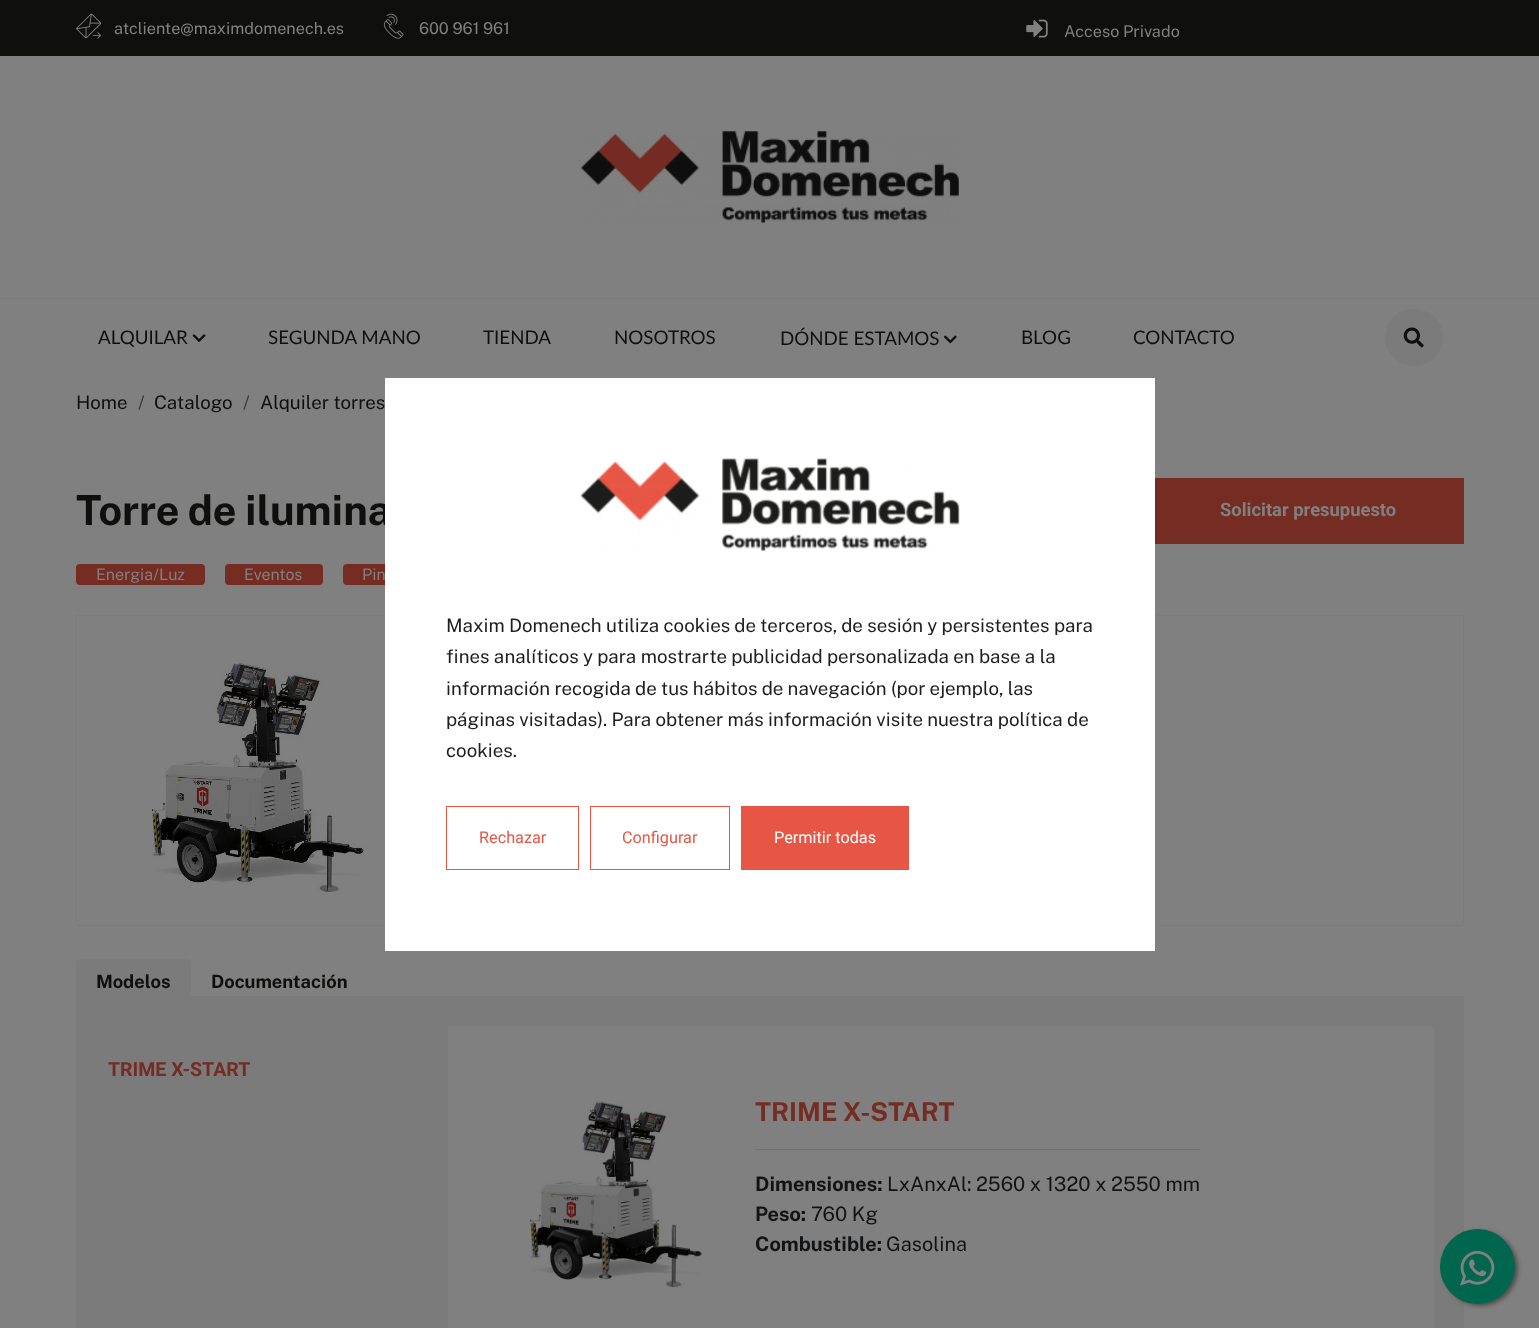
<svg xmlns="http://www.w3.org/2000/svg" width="1539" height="1328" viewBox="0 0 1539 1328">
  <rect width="100%" height="100%" fill="rgb(128,128,128)"/>
  <rect x="0" y="0" width="1539" height="56" fill="rgb(15,15,14)"/>
  <image x="76" y="13" width="26" height="26" href="pic1.png"/>
  <text x="114" y="34" font-family="Public Sans" font-size="16.25" fill="rgb(128,128,128)">atcliente@maximdomenech.es</text>
  <image x="383" y="13" width="21" height="26" href="pic2.png"/>
  <text x="419" y="34" font-family="Public Sans" font-size="16.25" fill="rgb(128,128,128)">600 961 961</text>
  <image x="1026" y="19" width="22" height="19" href="pic3.png"/>
  <text x="1064" y="37" font-family="Public Sans" font-size="16.25" fill="rgb(128,128,128)">Acceso Privado</text>
  <image x="581" y="131" width="378" height="92" href="pic4.png"/>
  <rect x="0" y="298" width="1539" height="1" fill="rgb(123,123,124)"/>
  <text x="98" y="344" font-family="Lato" font-size="18.75" fill="rgb(15,15,14)">ALQUILAR</text>
  <image x="192" y="334" width="14" height="8" href="pic5.png"/>
  <g font-family="Lato" font-size="18.75" fill="rgb(15,15,14)">
    <text x="268" y="344">SEGUNDA MANO</text>
    <text x="483" y="344">TIENDA</text>
    <text x="614" y="344">NOSOTROS</text>
    <text x="780" y="345">DÓNDE ESTAMOS</text>
  </g>
  <image x="944" y="335" width="13" height="9" href="pic6.png"/>
  <g font-family="Lato" font-size="18.75" fill="rgb(15,15,14)">
    <text x="1021" y="344">BLOG</text>
    <text x="1133" y="344">CONTACTO</text>
  </g>
  <rect x="1385" y="309" width="58" height="57" rx="28.5" fill="rgb(123,123,124)"/>
  <image x="1403" y="327" width="21" height="21" href="pic7.png"/>
  <text x="76" y="409" font-family="Public Sans" font-size="18.75" fill="rgb(15,15,14)">Home</text>
  <text x="138" y="409" font-family="Public Sans" font-size="18.75" fill="rgb(54,59,63)">/</text>
  <text x="154" y="409" font-family="Public Sans" font-size="18.75" fill="rgb(15,15,14)">Catalogo</text>
  <text x="243" y="409" font-family="Public Sans" font-size="18.75" fill="rgb(54,59,63)">/</text>
  <text x="260" y="409" font-family="Public Sans" font-size="18.75" fill="rgb(15,15,14)">Alquiler torres</text>
  <text x="76" y="525" font-family="Public Sans" font-size="41.5" font-weight="bold" fill="rgb(15,15,14)">Torre de ilumina</text>
  <rect x="1155" y="478" width="309" height="66" fill="rgb(116,44,35)"/>
  <text x="1220" y="516" font-family="Roboto" font-size="18.4" font-weight="bold" fill="rgb(128,128,128)">Solicitar presupuesto</text>
  <rect x="76" y="564" width="129" height="21" rx="4" fill="rgb(116,44,35)"/>
  <text x="96" y="580" font-family="Public Sans" font-size="16" fill="rgb(128,128,128)">Energia/Luz</text>
  <rect x="225" y="564" width="98" height="21" rx="4" fill="rgb(116,44,35)"/>
  <text x="244" y="580" font-family="Public Sans" font-size="16" fill="rgb(128,128,128)">Eventos</text>
  <rect x="343" y="564" width="93" height="21" rx="4" fill="rgb(116,44,35)"/>
  <text x="362" y="580" font-family="Public Sans" font-size="16" fill="rgb(128,128,128)">Pin</text>
  <rect x="76.5" y="615.5" width="1387" height="310" fill="none" stroke="rgb(123,123,124)"/>
  <image x="152" y="663" width="212" height="229" href="pic8.png"/>
  <rect x="76" y="996" width="1388" height="332" fill="rgb(123,123,124)"/>
  <path d="M81 959H186C189 959 191 961 191 964V1003H76V964C76 961 78 959 81 959Z" fill="rgb(123,123,124)"/>
  <g font-family="Public Sans" font-size="18.4" font-weight="bold" fill="rgb(15,15,14)">
    <text x="96" y="988">Modelos</text>
    <text x="211" y="988">Documentación</text>
  </g>
  <text x="108" y="1076" font-family="Roboto" font-size="19.5" font-weight="bold" fill="rgb(116,44,35)">TRIME X-START</text>
  <rect x="448" y="1026" width="986" height="302" fill="rgb(128,128,128)"/>
  <image x="529" y="1101" width="173" height="187" href="pic9.png"/>
  <text x="755" y="1121" font-family="Public Sans" font-size="26" font-weight="bold" fill="rgb(116,44,35)">TRIME X-START</text>
  <rect x="755" y="1149" width="445" height="1" fill="rgb(115,115,115)"/>
  <text x="755" y="1191" font-family="Public Sans" font-size="20" font-weight="bold" fill="rgb(17,19,21)">Dimensiones:</text>
  <text x="887" y="1191" font-family="Public Sans" font-size="20" fill="rgb(17,19,21)">LxAnxAl: 2560 x 1320 x 2550 mm</text>
  <text x="755" y="1221" font-family="Public Sans" font-size="20" font-weight="bold" fill="rgb(17,19,21)">Peso:</text>
  <text x="811" y="1221" font-family="Public Sans" font-size="20" fill="rgb(17,19,21)">760 Kg</text>
  <text x="755" y="1251" font-family="Public Sans" font-size="20" font-weight="bold" fill="rgb(17,19,21)">Combustible:</text>
  <text x="886" y="1251" font-family="Public Sans" font-size="20" fill="rgb(17,19,21)">Gasolina</text>
  <rect x="385" y="378" width="770" height="573" fill="rgb(255,255,255)"/>
  <image x="581" y="458" width="379" height="93" href="pic10.png"/>
  <g font-family="Public Sans" font-size="18.75" fill="rgb(30,30,28)">
    <text>
      <tspan x="446" y="632">Maxim Domenech utiliza cookies de terceros, de sesión y persistentes para</tspan>
      <tspan x="446" y="663">fines analíticos y para mostrarte publicidad personalizada en base a la</tspan>
      <tspan x="446" y="695">información recogida de tus hábitos de navegación (por ejemplo, las</tspan>
      <tspan x="446" y="726">páginas visitadas). Para obtener más información visite nuestra política de</tspan>
      <tspan x="446" y="757">cookies.</tspan>
    </text>
  </g>
  <rect x="446.5" y="806.5" width="132" height="63" fill="none" stroke="rgb(231,86,69)"/>
  <text x="479" y="843" font-family="Roboto" font-size="16.25" fill="rgb(231,86,69)">Rechazar</text>
  <rect x="590.5" y="806.5" width="139" height="63" fill="none" stroke="rgb(231,86,69)"/>
  <text x="622" y="843" font-family="Roboto" font-size="16.25" fill="rgb(231,86,69)">Configurar</text>
  <rect x="741" y="806" width="168" height="64" fill="rgb(231,86,69)"/>
  <text x="774" y="843" font-family="Roboto" font-size="16.25" fill="rgb(255,255,255)">Permitir todas</text>
  <rect x="1443" y="1231" width="75" height="75" rx="37.5" fill="rgb(77,77,77)" filter="blur(2px)"/>
  <circle cx="1477.5" cy="1266.5" r="37.5" fill="rgb(0,102,77)"/>
  <image x="1460" y="1250" width="35" height="36" href="pic11.png"/>
</svg>
